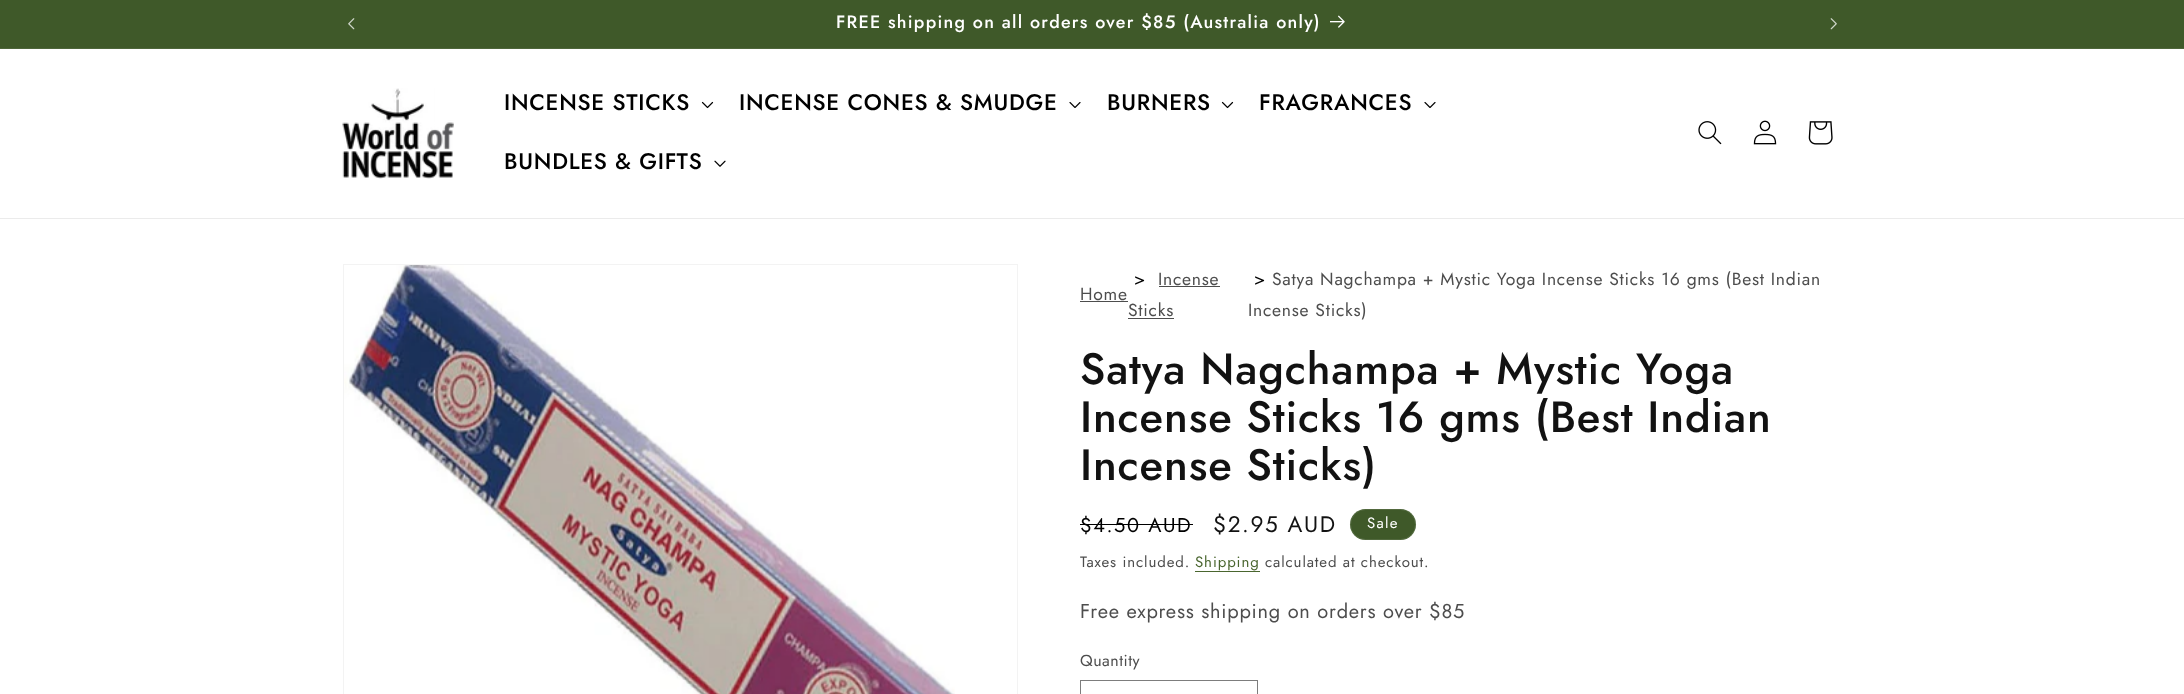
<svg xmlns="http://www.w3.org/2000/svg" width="2184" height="694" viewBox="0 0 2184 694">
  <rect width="100%" height="100%" fill="rgb(255,255,255)"/>
  <rect x="0" y="0" width="2184" height="48" fill="rgb(63,89,41)"/>
  <rect x="0" y="48" width="2184" height="1" fill="rgb(78,102,58)"/>
  <image x="348" y="18" width="7" height="12" href="pic1.png"/>
  <text x="836" y="28" font-family="Jost" font-size="17.9" font-weight="500" letter-spacing="1.25" fill="rgb(255,255,255)">FREE shipping on all orders over $85 (Australia only)</text>
  <image x="1330" y="15" width="15" height="13" href="pic2.png"/>
  <image x="1830" y="18" width="7" height="12" href="pic3.png"/>
  <rect x="0" y="218" width="2184" height="1" fill="rgb(235,235,235)"/>
  <image x="342" y="88" width="112" height="91" href="pic4.png"/>
  <text x="504" y="110" font-family="Jost" font-size="22.5" font-weight="500" letter-spacing="0.75" fill="rgb(0,0,0)">INCENSE STICKS</text>
  <image x="701" y="101" width="13" height="8" href="pic5.png"/>
  <text x="739" y="110" font-family="Jost" font-size="22.5" font-weight="500" letter-spacing="0.75" fill="rgb(0,0,0)">INCENSE CONES &amp; SMUDGE</text>
  <image x="1069" y="102" width="12" height="6" href="pic6.png"/>
  <text x="1107" y="110" font-family="Jost" font-size="22.5" font-weight="500" letter-spacing="0.75" fill="rgb(0,0,0)">BURNERS</text>
  <image x="1221" y="101" width="13" height="8" href="pic5.png"/>
  <text x="1259" y="110" font-family="Jost" font-size="22.5" font-weight="500" letter-spacing="0.75" fill="rgb(0,0,0)">FRAGRANCES</text>
  <image x="1424" y="102" width="12" height="6" href="pic6.png"/>
  <text x="504" y="169" font-family="Jost" font-size="22.5" font-weight="500" letter-spacing="0.75" fill="rgb(0,0,0)">BUNDLES &amp; GIFTS</text>
  <image x="714" y="160" width="12" height="7" href="pic7.png"/>
  <image x="1698" y="121" width="24" height="24" href="pic8.png"/>
  <image x="1753" y="120" width="24" height="25" href="pic9.png"/>
  <image x="1808" y="121" width="25" height="24" href="pic10.png"/>
  <rect x="343.5" y="264.5" width="674" height="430" fill="none" stroke="rgb(243,243,243)"/>
  <image x="344" y="265" width="611" height="429" href="pic11.png"/>
  <text x="1080" y="300" font-family="Jost" font-size="17.5" letter-spacing="0.75" fill="rgb(77,77,77)">Home</text>
  <rect x="1080" y="301" width="48" height="1" fill="rgb(77,77,77)"/>
  <text x="1134" y="285" font-family="Jost" font-size="17.5" letter-spacing="0.75" fill="rgb(0,0,0)">&gt;</text>
  <text x="1158" y="285" font-family="Jost" font-size="17.5" letter-spacing="0.75" fill="rgb(77,77,77)">Incense</text>
  <rect x="1159" y="286" width="61" height="1" fill="rgb(77,77,77)"/>
  <text x="1128" y="316" font-family="Jost" font-size="17.5" letter-spacing="0.75" fill="rgb(77,77,77)">Sticks</text>
  <rect x="1128" y="318" width="46" height="1" fill="rgb(77,77,77)"/>
  <text x="1254" y="285" font-family="Jost" font-size="17.5" letter-spacing="0.75" fill="rgb(0,0,0)">&gt;</text>
  <g font-family="Jost" font-size="17.5" letter-spacing="0.75" fill="rgb(77,77,77)">
    <text x="1272" y="285">Satya Nagchampa + Mystic Yoga Incense Sticks 16 gms (Best Indian</text>
    <text x="1248" y="316">Incense Sticks)</text>
  </g>
  <g font-family="Jost" font-size="43.75" font-weight="500" letter-spacing="0.85" fill="rgb(18,18,18)">
    <text>
      <tspan x="1080" y="384">Satya Nagchampa + Mystic Yoga</tspan>
      <tspan x="1080" y="432">Incense Sticks 16 gms (Best Indian</tspan>
      <tspan x="1080" y="480">Incense Sticks)</tspan>
    </text>
  </g>
  <text x="1080" y="532" font-family="Jost" font-size="20" letter-spacing="1.6" fill="rgb(0,0,0)">$4.50 AUD</text>
  <rect x="1080" y="524" width="113" height="1" fill="rgb(0,0,0)"/>
  <text x="1213" y="532" font-family="Jost" font-size="22.5" letter-spacing="1.6" fill="rgb(18,18,18)">$2.95 AUD</text>
  <rect x="1350" y="509" width="66" height="31" rx="15.5" fill="rgb(63,89,41)"/>
  <rect x="1350.5" y="509.5" width="65" height="30" rx="15" fill="none" stroke="rgba(255,255,255,0.1)"/>
  <text x="1367" y="528" font-family="Jost" font-size="15" letter-spacing="1.25" fill="rgb(255,255,255)">Sale</text>
  <text x="1080" y="567" font-family="Jost" font-size="15" letter-spacing="0.9" fill="rgb(77,77,77)">Taxes included.</text>
  <text x="1195" y="567" font-family="Jost" font-size="15" letter-spacing="0.9" fill="rgb(74,102,47)">Shipping</text>
  <rect x="1195" y="571" width="65" height="1" fill="rgb(74,102,47)"/>
  <text x="1265" y="567" font-family="Jost" font-size="15" letter-spacing="0.9" fill="rgb(77,77,77)">calculated at checkout.</text>
  <text x="1080" y="618" font-family="Jost" font-size="20" letter-spacing="0.75" fill="rgb(77,77,77)">Free express shipping on orders over $85</text>
  <text x="1080" y="666" font-family="Jost" font-size="16" letter-spacing="0.5" fill="rgb(77,77,77)">Quantity</text>
  <rect x="1080.5" y="680.5" width="177" height="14" fill="none" stroke="rgb(125,125,125)"/>
</svg>
